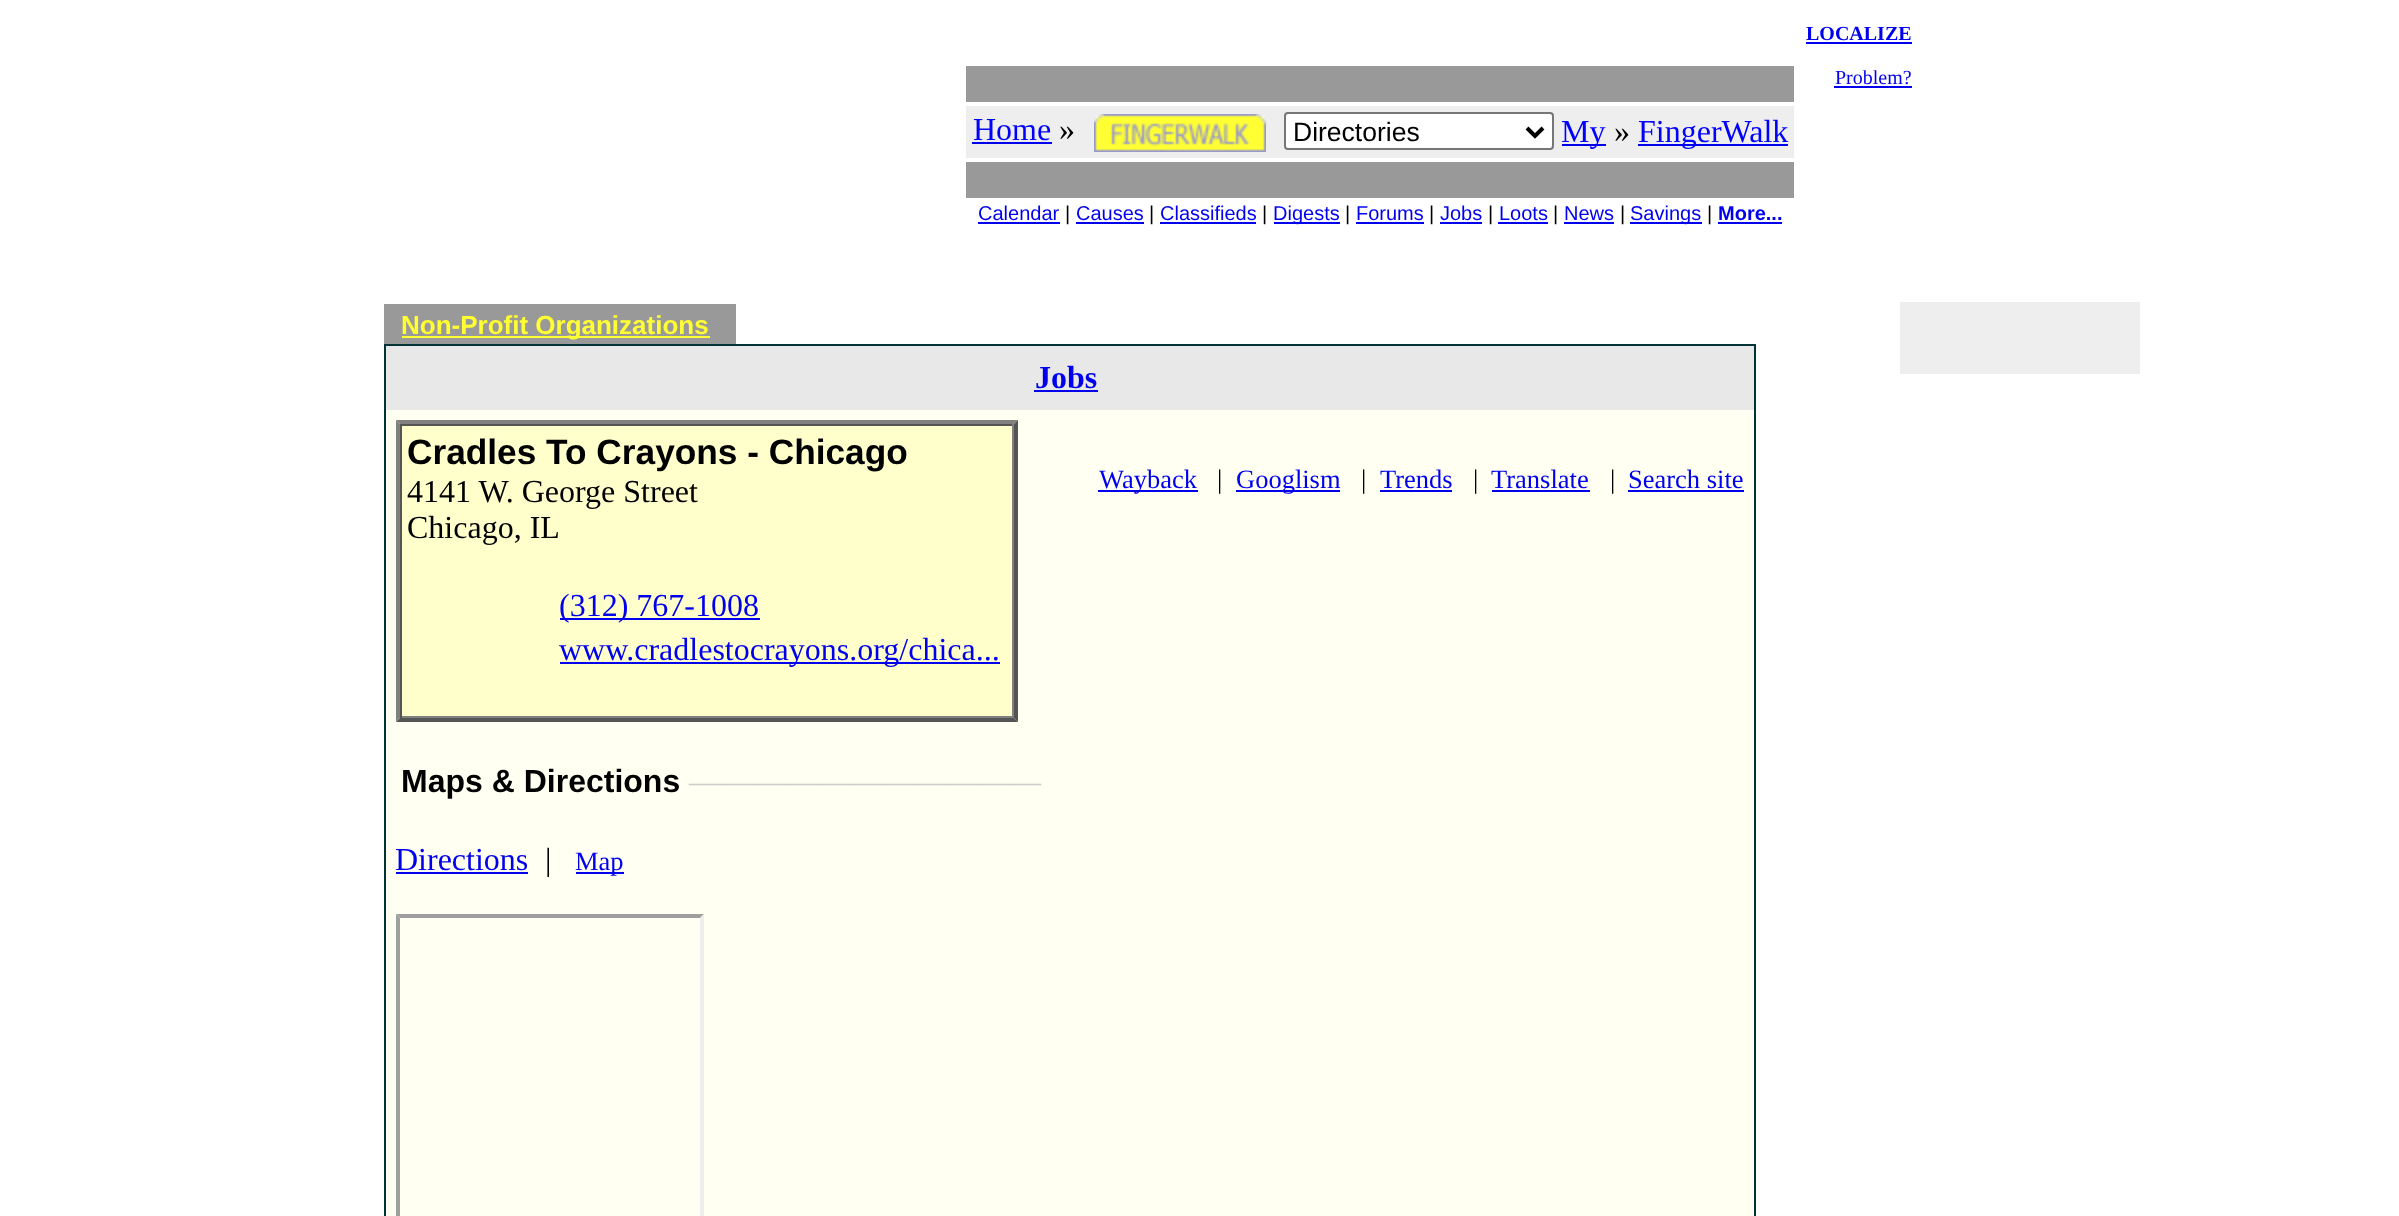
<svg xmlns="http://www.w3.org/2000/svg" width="2399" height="1216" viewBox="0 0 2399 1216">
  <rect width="100%" height="100%" fill="rgb(255,255,255)"/>
  <text x="1806" y="40" font-family="Liberation Serif" font-size="20" font-weight="bold" fill="rgb(0,0,238)">LOCALIZE</text>
  <rect x="1806" y="42" width="106" height="2" fill="rgb(0,0,238)"/>
  <text x="1835" y="84" font-family="Liberation Serif" font-size="20" fill="rgb(0,0,238)">Problem?</text>
  <rect x="1834" y="86" width="78" height="2" fill="rgb(0,0,238)"/>
  <rect x="966" y="66" width="828" height="36" fill="rgb(153,153,153)"/>
  <rect x="966" y="106" width="828" height="52" fill="rgb(238,238,238)"/>
  <text x="973" y="140" font-family="Liberation Serif" font-size="32" fill="rgb(0,0,255)">Home</text>
  <rect x="972" y="142" width="80" height="2" fill="rgb(0,0,238)"/>
  <text x="1059" y="140" font-family="Liberation Serif" font-size="32" fill="rgb(0,0,0)">»</text>
  <image x="1094" y="114" width="172" height="38" href="pic1.png"/>
  <rect x="1285" y="113" width="268" height="36" rx="3" fill="rgb(255,255,255)" stroke="rgb(118,118,118)" stroke-width="2"/>
  <path d="M1527 128L1535 136L1543 128" fill="none" stroke="rgb(0,0,0)" stroke-width="4"/>
  <text x="1293" y="141" font-family="Liberation Sans" font-size="26.5" fill="rgb(0,0,0)">Directories</text>
  <rect x="1562" y="144" width="44" height="2" fill="rgb(0,0,238)"/>
  <text x="1561" y="142" font-family="Liberation Serif" font-size="32" fill="rgb(0,0,255)">My</text>
  <text x="1614" y="142" font-family="Liberation Serif" font-size="32" fill="rgb(0,0,0)">»</text>
  <rect x="1638" y="144" width="150" height="2" fill="rgb(0,0,238)"/>
  <text x="1638" y="142" font-family="Liberation Serif" font-size="32" fill="rgb(0,0,255)">FingerWalk</text>
  <rect x="966" y="162" width="828" height="36" fill="rgb(153,153,153)"/>
  <text x="978" y="220" font-family="Liberation Sans" font-size="20" fill="rgb(0,0,238)">Calendar</text>
  <rect x="978" y="222" width="82" height="2" fill="rgb(0,0,238)"/>
  <text x="1065" y="220" font-family="Liberation Sans" font-size="20" fill="rgb(0,0,0)">|</text>
  <text x="1076" y="220" font-family="Liberation Sans" font-size="20" fill="rgb(0,0,238)">Causes</text>
  <rect x="1076" y="222" width="68" height="2" fill="rgb(0,0,238)"/>
  <text x="1149" y="220" font-family="Liberation Sans" font-size="20" fill="rgb(0,0,0)">|</text>
  <text x="1160" y="220" font-family="Liberation Sans" font-size="20" fill="rgb(0,0,238)">Classifieds</text>
  <rect x="1160" y="222" width="96" height="2" fill="rgb(0,0,238)"/>
  <text x="1262" y="220" font-family="Liberation Sans" font-size="20" fill="rgb(0,0,0)">|</text>
  <rect x="1274" y="222" width="66" height="2" fill="rgb(0,0,238)"/>
  <text x="1273" y="220" font-family="Liberation Sans" font-size="20" fill="rgb(0,0,238)">Digests</text>
  <text x="1345" y="220" font-family="Liberation Sans" font-size="20" fill="rgb(0,0,0)">|</text>
  <text x="1356" y="220" font-family="Liberation Sans" font-size="20" fill="rgb(0,0,238)">Forums</text>
  <rect x="1356" y="222" width="68" height="2" fill="rgb(0,0,238)"/>
  <text x="1429" y="220" font-family="Liberation Sans" font-size="20" fill="rgb(0,0,0)">|</text>
  <text x="1440" y="220" font-family="Liberation Sans" font-size="20" fill="rgb(0,0,238)">Jobs</text>
  <rect x="1440" y="222" width="42" height="2" fill="rgb(0,0,238)"/>
  <text x="1488" y="220" font-family="Liberation Sans" font-size="20" fill="rgb(0,0,0)">|</text>
  <text x="1499" y="220" font-family="Liberation Sans" font-size="20" fill="rgb(0,0,238)">Loots</text>
  <rect x="1498" y="222" width="50" height="2" fill="rgb(0,0,238)"/>
  <text x="1553" y="220" font-family="Liberation Sans" font-size="20" fill="rgb(0,0,0)">|</text>
  <text x="1564" y="220" font-family="Liberation Sans" font-size="20" fill="rgb(0,0,238)">News</text>
  <rect x="1564" y="222" width="50" height="2" fill="rgb(0,0,238)"/>
  <text x="1620" y="220" font-family="Liberation Sans" font-size="20" fill="rgb(0,0,0)">|</text>
  <rect x="1630" y="222" width="72" height="2" fill="rgb(0,0,238)"/>
  <text x="1630" y="220" font-family="Liberation Sans" font-size="20" fill="rgb(0,0,238)">Savings</text>
  <text x="1707" y="220" font-family="Liberation Sans" font-size="20" fill="rgb(0,0,0)">|</text>
  <text x="1718" y="220" font-family="Liberation Sans" font-size="20" font-weight="bold" fill="rgb(0,0,238)">More...</text>
  <rect x="1718" y="222" width="64" height="2" fill="rgb(0,0,238)"/>
  <rect x="384" y="304" width="352" height="40" fill="rgb(153,153,153)"/>
  <rect x="402" y="336" width="308" height="2" fill="rgb(255,255,51)"/>
  <text x="401" y="334" font-family="Liberation Sans" font-size="26" font-weight="bold" fill="rgb(255,255,51)">Non-Profit Organizations</text>
  <rect x="384" y="344" width="1372" height="872" fill="rgb(0,51,51)"/>
  <rect x="386" y="410" width="1368" height="806" fill="rgb(255,255,242)"/>
  <rect x="386" y="346" width="1368" height="64" fill="rgb(232,232,232)"/>
  <text x="1035" y="388" font-family="Liberation Serif" font-size="32" font-weight="bold" fill="rgb(0,0,238)">Jobs</text>
  <rect x="1034" y="390" width="64" height="2" fill="rgb(0,0,238)"/>
  <rect x="396" y="420" width="622" height="302" fill="rgb(255,255,204)"/>
  <path d="M396 420H1018L1014 424H400Z" fill="rgb(128,128,128)"/>
  <path d="M1018 420V722L1014 718V424Z" fill="rgb(85,85,85)"/>
  <path d="M1018 722H396L400 718H1014Z" fill="rgb(85,85,85)"/>
  <path d="M396 722V420L400 424V718Z" fill="rgb(128,128,128)"/>
  <rect x="400" y="424" width="614" height="2" fill="rgb(85,85,85)"/>
  <rect x="1012" y="424" width="2" height="294" fill="rgb(128,128,128)"/>
  <rect x="400" y="716" width="614" height="2" fill="rgb(128,128,128)"/>
  <rect x="400" y="424" width="2" height="294" fill="rgb(85,85,85)"/>
  <text x="407" y="464" font-family="Liberation Sans" font-size="35.25" font-weight="bold" fill="rgb(0,0,0)">Cradles To Crayons - Chicago</text>
  <g font-family="Liberation Serif" font-size="32" fill="rgb(0,0,0)">
    <text>
      <tspan x="407" y="502">4141 W. George Street</tspan>
      <tspan x="407" y="538">Chicago, IL</tspan>
    </text>
  </g>
  <rect x="560" y="618" width="200" height="2" fill="rgb(0,0,238)"/>
  <text x="559" y="616" font-family="Liberation Serif" font-size="32" fill="rgb(0,0,238)">(312) 767-1008</text>
  <rect x="560" y="662" width="440" height="2" fill="rgb(0,0,238)"/>
  <text x="559" y="660" font-family="Liberation Serif" font-size="32" fill="rgb(0,0,238)">www.cradlestocrayons.org/chica...</text>
  <text x="401" y="792" font-family="Liberation Sans" font-size="32" font-weight="bold" fill="rgb(0,0,0)">Maps &amp; Directions</text>
  <text x="689" y="792" font-family="Liberation Serif" font-size="32" fill="rgb(204,204,204)">———————————</text>
  <text x="395" y="870" font-family="Liberation Serif" font-size="32" fill="rgb(0,0,238)">Directions</text>
  <rect x="396" y="872" width="132" height="2" fill="rgb(0,0,238)"/>
  <text x="545" y="870" font-family="Liberation Serif" font-size="32" fill="rgb(0,0,0)">|</text>
  <rect x="576" y="872" width="48" height="2" fill="rgb(0,0,238)"/>
  <text x="575" y="870" font-family="Liberation Serif" font-size="26.5" fill="rgb(0,0,238)">Map</text>
  <path d="M396 914H704L700 918H400Z" fill="rgb(159,159,159)"/>
  <path d="M396 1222V914L400 918V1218Z" fill="rgb(159,159,159)"/>
  <path d="M704 914V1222L700 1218V918Z" fill="rgb(238,238,238)"/>
  <rect x="1098" y="490" width="100" height="2" fill="rgb(0,0,238)"/>
  <text x="1099" y="488" font-family="Liberation Serif" font-size="26.5" fill="rgb(0,0,238)">Wayback</text>
  <text x="1217" y="488" font-family="Liberation Serif" font-size="26.5" fill="rgb(0,0,0)">|</text>
  <rect x="1236" y="490" width="104" height="2" fill="rgb(0,0,238)"/>
  <text x="1236" y="488" font-family="Liberation Serif" font-size="26.5" fill="rgb(0,0,238)">Googlism</text>
  <text x="1361" y="488" font-family="Liberation Serif" font-size="26.5" fill="rgb(0,0,0)">|</text>
  <text x="1380" y="488" font-family="Liberation Serif" font-size="26.5" fill="rgb(0,0,238)">Trends</text>
  <rect x="1380" y="490" width="72" height="2" fill="rgb(0,0,238)"/>
  <text x="1473" y="488" font-family="Liberation Serif" font-size="26.5" fill="rgb(0,0,0)">|</text>
  <text x="1491" y="488" font-family="Liberation Serif" font-size="26.5" fill="rgb(0,0,238)">Translate</text>
  <rect x="1492" y="490" width="98" height="2" fill="rgb(0,0,238)"/>
  <text x="1610" y="488" font-family="Liberation Serif" font-size="26.5" fill="rgb(0,0,0)">|</text>
  <text x="1628" y="488" font-family="Liberation Serif" font-size="26.5" fill="rgb(0,0,238)">Search site</text>
  <rect x="1628" y="490" width="116" height="2" fill="rgb(0,0,238)"/>
  <rect x="1900" y="302" width="240" height="72" fill="rgb(238,238,238)"/>
</svg>
